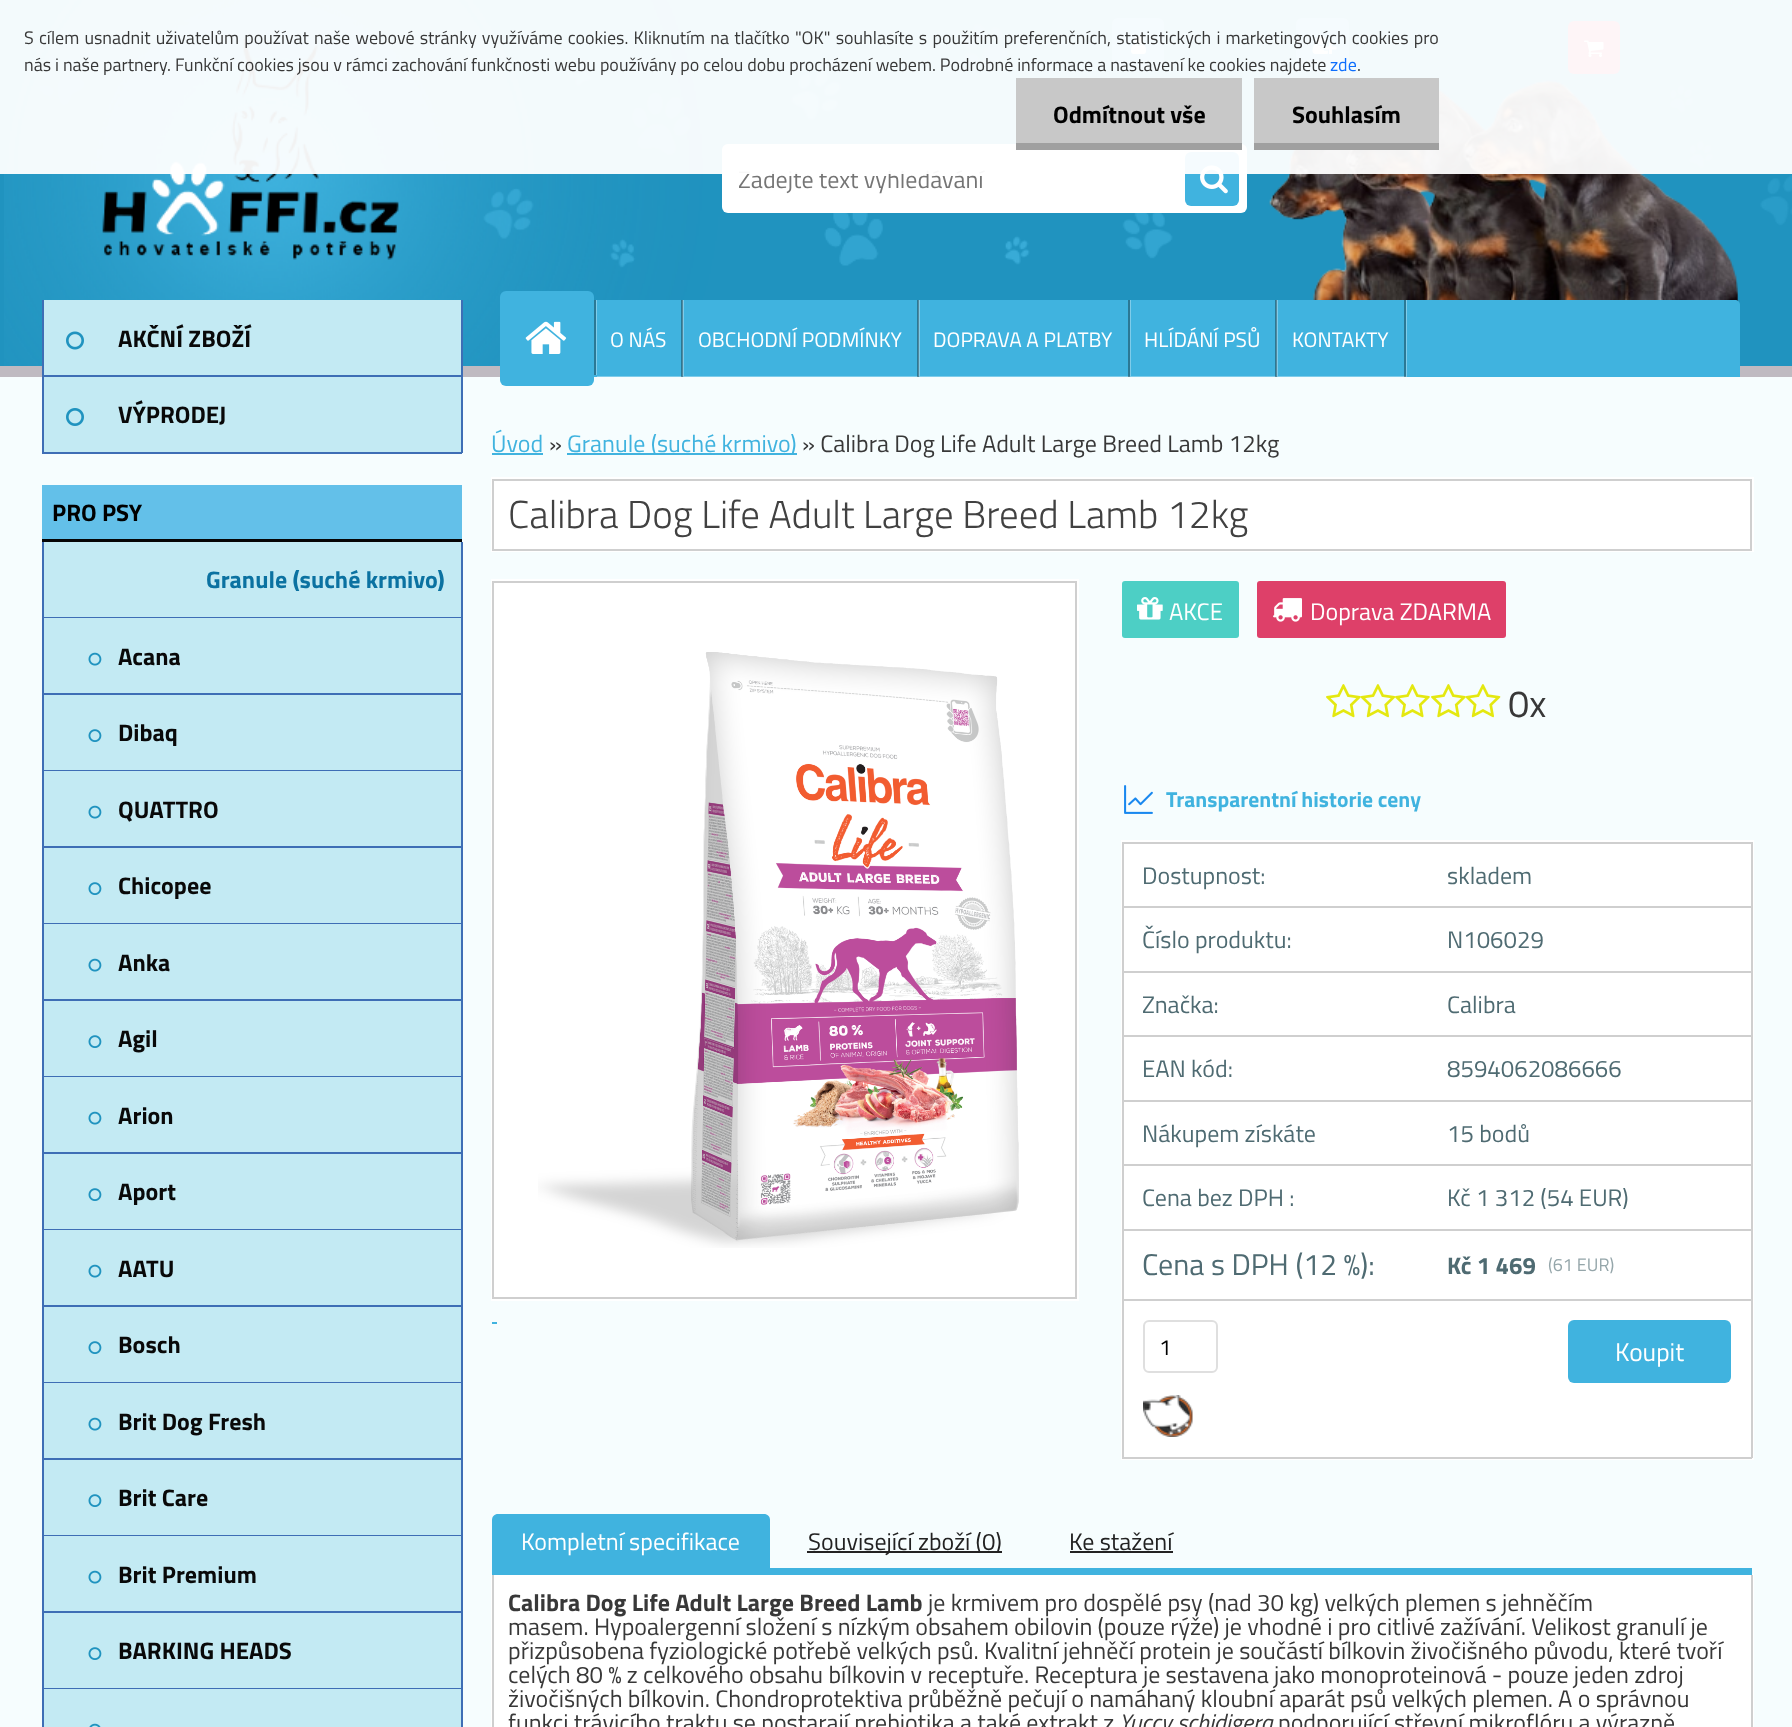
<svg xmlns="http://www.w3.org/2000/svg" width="1792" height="1727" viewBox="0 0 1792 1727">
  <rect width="100%" height="100%" fill="rgb(246,253,254)"/>
  <rect x="0" y="0" width="4" height="366" fill="rgb(32,147,191)"/>
  <image x="4" y="0" width="1788" height="366" href="pic1.png"/>
  <rect x="722" y="144" width="525" height="69" rx="6" fill="rgb(255,255,255)"/>
  <text x="738" y="188" font-family="Titillium Web" font-size="24" fill="rgb(117,117,117)">Zadejte text vyhledávání</text>
  <rect x="1185" y="152" width="54" height="54" rx="6" fill="rgb(64,179,223)"/>
  <image x="1200" y="165" width="28" height="29" href="pic2.png"/>
  <rect x="1112" y="18" width="52" height="53" rx="6" fill="rgb(64,179,223)"/>
  <image x="1131" y="36" width="15" height="18" href="pic3.png"/>
  <rect x="1296" y="18" width="53" height="53" rx="6" fill="rgb(64,179,223)"/>
  <image x="1312" y="36" width="25" height="18" href="pic4.png"/>
  <rect x="1568" y="21" width="52" height="53" rx="6" fill="rgb(226,70,102)"/>
  <image x="1584" y="40" width="20" height="17" href="pic5.png"/>
  <rect x="0" y="0" width="1792" height="174" fill="rgba(255,255,255,0.95)"/>
  <g font-family="Titillium Web" font-size="18" fill="rgb(56,56,56)">
    <text>
      <tspan x="24" y="44" word-spacing="1.25">S cílem usnadnit uživatelům používat naše webové stránky využíváme cookies. Kliknutím na tlačítko "OK" souhlasíte s použitím preferenčních, statistických i marketingových cookies pro</tspan>
      <tspan x="24" y="71">nás i naše partnery. Funkční cookies jsou v rámci zachování funkčnosti webu používány po celou dobu procházení webem. Podrobné informace a nastavení ke cookies najdete</tspan>
    </text>
  </g>
  <text x="1330" y="71" font-family="Titillium Web" font-size="18" fill="rgb(13,110,253)">zde</text>
  <text x="1357" y="71" font-family="Titillium Web" font-size="18" fill="rgb(56,56,56)">.</text>
  <rect x="1016" y="78" width="226" height="65" fill="rgb(200,200,200)"/>
  <rect x="1016" y="143" width="226" height="7" fill="rgb(160,160,160)"/>
  <text x="1053" y="123" font-family="Titillium Web" font-size="24" font-weight="bold" fill="rgb(0,0,0)">Odmítnout vše</text>
  <rect x="1254" y="78" width="185" height="65" fill="rgb(200,200,200)"/>
  <rect x="1254" y="143" width="185" height="7" fill="rgb(160,160,160)"/>
  <text x="1292" y="123" font-family="Titillium Web" font-size="24" font-weight="bold" fill="rgb(0,0,0)">Souhlasím</text>
  <rect x="0" y="366" width="1792" height="11" fill="rgb(191,186,193)"/>
  <rect x="44" y="300" width="417" height="75" fill="rgb(195,234,243)"/>
  <rect x="461" y="300" width="2" height="153" fill="rgb(62,110,181)"/>
  <rect x="42" y="375" width="420" height="2" fill="rgb(62,110,181)"/>
  <rect x="42" y="300" width="2" height="77" fill="rgb(62,110,181)"/>
  <image x="66" y="331" width="18" height="19" href="pic6.png"/>
  <text x="118" y="347" font-family="Titillium Web" font-size="24" font-weight="bold" fill="rgb(9,9,9)">AKČNÍ ZBOŽÍ</text>
  <rect x="44" y="377" width="417" height="75" fill="rgb(195,234,243)"/>
  <rect x="42" y="452" width="420" height="2" fill="rgb(62,110,181)"/>
  <rect x="42" y="377" width="2" height="76" fill="rgb(62,110,181)"/>
  <image x="66" y="408" width="18" height="18" href="pic7.png"/>
  <text x="118" y="423" font-family="Titillium Web" font-size="24" font-weight="bold" fill="rgb(9,9,9)">VÝPRODEJ</text>
  <rect x="42" y="485" width="420" height="54" fill="rgb(99,192,233)"/>
  <rect x="42" y="539" width="420" height="3" fill="rgb(5,5,5)"/>
  <text x="52" y="521" font-family="Titillium Web" font-size="24" font-weight="bold" fill="rgb(0,0,0)">PRO PSY</text>
  <rect x="44" y="542" width="417" height="75" fill="rgb(195,234,243)"/>
  <rect x="461" y="542" width="2" height="1185" fill="rgb(62,110,181)"/>
  <rect x="42" y="617" width="420" height="1" fill="rgb(62,110,181)"/>
  <rect x="42" y="542" width="2" height="76" fill="rgb(62,110,181)"/>
  <text x="206" y="588" font-family="Titillium Web" font-size="24" font-weight="bold" fill="rgb(11,114,161)">Granule (suché krmivo)</text>
  <rect x="44" y="618" width="417" height="75" fill="rgb(195,234,243)"/>
  <rect x="42" y="693" width="420" height="2" fill="rgb(62,110,181)"/>
  <rect x="42" y="618" width="2" height="77" fill="rgb(62,110,181)"/>
  <image x="88" y="652" width="14" height="14" href="pic8.png"/>
  <text x="118" y="665" font-family="Titillium Web" font-size="24" font-weight="bold" fill="rgb(9,9,9)">Acana</text>
  <rect x="44" y="695" width="417" height="75" fill="rgb(195,234,243)"/>
  <rect x="42" y="770" width="420" height="1" fill="rgb(62,110,181)"/>
  <rect x="42" y="695" width="2" height="76" fill="rgb(62,110,181)"/>
  <image x="88" y="729" width="14" height="13" href="pic9.png"/>
  <text x="118" y="741" font-family="Titillium Web" font-size="24" font-weight="bold" fill="rgb(9,9,9)">Dibaq</text>
  <rect x="44" y="771" width="417" height="75" fill="rgb(195,234,243)"/>
  <rect x="42" y="846" width="420" height="2" fill="rgb(62,110,181)"/>
  <rect x="42" y="771" width="2" height="77" fill="rgb(62,110,181)"/>
  <image x="88" y="805" width="14" height="14" href="pic8.png"/>
  <text x="118" y="818" font-family="Titillium Web" font-size="24" font-weight="bold" fill="rgb(9,9,9)">QUATTRO</text>
  <rect x="44" y="848" width="417" height="75" fill="rgb(195,234,243)"/>
  <rect x="42" y="923" width="420" height="1" fill="rgb(62,110,181)"/>
  <rect x="42" y="848" width="2" height="76" fill="rgb(62,110,181)"/>
  <image x="88" y="882" width="14" height="13" href="pic9.png"/>
  <text x="118" y="894" font-family="Titillium Web" font-size="24" font-weight="bold" fill="rgb(9,9,9)">Chicopee</text>
  <rect x="44" y="924" width="417" height="75" fill="rgb(195,234,243)"/>
  <rect x="42" y="999" width="420" height="2" fill="rgb(62,110,181)"/>
  <rect x="42" y="924" width="2" height="77" fill="rgb(62,110,181)"/>
  <image x="88" y="958" width="14" height="14" href="pic8.png"/>
  <text x="118" y="971" font-family="Titillium Web" font-size="24" font-weight="bold" fill="rgb(9,9,9)">Anka</text>
  <rect x="44" y="1001" width="417" height="75" fill="rgb(195,234,243)"/>
  <rect x="42" y="1076" width="420" height="1" fill="rgb(62,110,181)"/>
  <rect x="42" y="1001" width="2" height="76" fill="rgb(62,110,181)"/>
  <image x="88" y="1035" width="14" height="13" href="pic9.png"/>
  <text x="118" y="1047" font-family="Titillium Web" font-size="24" font-weight="bold" fill="rgb(9,9,9)">Agil</text>
  <rect x="44" y="1077" width="417" height="75" fill="rgb(195,234,243)"/>
  <rect x="42" y="1152" width="420" height="2" fill="rgb(62,110,181)"/>
  <rect x="42" y="1077" width="2" height="77" fill="rgb(62,110,181)"/>
  <image x="88" y="1111" width="14" height="14" href="pic8.png"/>
  <text x="118" y="1124" font-family="Titillium Web" font-size="24" font-weight="bold" fill="rgb(9,9,9)">Arion</text>
  <rect x="44" y="1154" width="417" height="75" fill="rgb(195,234,243)"/>
  <rect x="42" y="1229" width="420" height="1" fill="rgb(62,110,181)"/>
  <rect x="42" y="1154" width="2" height="76" fill="rgb(62,110,181)"/>
  <image x="88" y="1188" width="14" height="13" href="pic9.png"/>
  <text x="118" y="1200" font-family="Titillium Web" font-size="24" font-weight="bold" fill="rgb(9,9,9)">Aport</text>
  <rect x="44" y="1230" width="417" height="75" fill="rgb(195,234,243)"/>
  <rect x="42" y="1305" width="420" height="2" fill="rgb(62,110,181)"/>
  <rect x="42" y="1230" width="2" height="77" fill="rgb(62,110,181)"/>
  <image x="88" y="1264" width="14" height="14" href="pic8.png"/>
  <text x="118" y="1277" font-family="Titillium Web" font-size="24" font-weight="bold" fill="rgb(9,9,9)">AATU</text>
  <rect x="44" y="1307" width="417" height="75" fill="rgb(195,234,243)"/>
  <rect x="42" y="1382" width="420" height="1" fill="rgb(62,110,181)"/>
  <rect x="42" y="1307" width="2" height="76" fill="rgb(62,110,181)"/>
  <image x="88" y="1341" width="14" height="13" href="pic9.png"/>
  <text x="118" y="1353" font-family="Titillium Web" font-size="24" font-weight="bold" fill="rgb(9,9,9)">Bosch</text>
  <rect x="44" y="1383" width="417" height="75" fill="rgb(195,234,243)"/>
  <rect x="42" y="1458" width="420" height="2" fill="rgb(62,110,181)"/>
  <rect x="42" y="1383" width="2" height="77" fill="rgb(62,110,181)"/>
  <image x="88" y="1417" width="14" height="14" href="pic8.png"/>
  <text x="118" y="1430" font-family="Titillium Web" font-size="24" font-weight="bold" fill="rgb(9,9,9)">Brit Dog Fresh</text>
  <rect x="44" y="1460" width="417" height="75" fill="rgb(195,234,243)"/>
  <rect x="42" y="1535" width="420" height="1" fill="rgb(62,110,181)"/>
  <rect x="42" y="1460" width="2" height="76" fill="rgb(62,110,181)"/>
  <image x="88" y="1494" width="14" height="13" href="pic9.png"/>
  <text x="118" y="1506" font-family="Titillium Web" font-size="24" font-weight="bold" fill="rgb(9,9,9)">Brit Care</text>
  <rect x="44" y="1536" width="417" height="75" fill="rgb(195,234,243)"/>
  <rect x="42" y="1611" width="420" height="2" fill="rgb(62,110,181)"/>
  <rect x="42" y="1536" width="2" height="77" fill="rgb(62,110,181)"/>
  <image x="88" y="1570" width="14" height="14" href="pic8.png"/>
  <text x="118" y="1583" font-family="Titillium Web" font-size="24" font-weight="bold" fill="rgb(9,9,9)">Brit Premium</text>
  <rect x="44" y="1613" width="417" height="75" fill="rgb(195,234,243)"/>
  <rect x="42" y="1688" width="420" height="1" fill="rgb(62,110,181)"/>
  <rect x="42" y="1613" width="2" height="114" fill="rgb(62,110,181)"/>
  <image x="88" y="1647" width="14" height="13" href="pic9.png"/>
  <text x="118" y="1659" font-family="Titillium Web" font-size="24" font-weight="bold" fill="rgb(9,9,9)">BARKING HEADS</text>
  <rect x="44" y="1689" width="417" height="38" fill="rgb(195,234,243)"/>
  <image x="89" y="1723" width="12" height="4" href="pic10.png"/>
  <text x="491" y="452" font-family="Titillium Web" font-size="24" fill="rgb(64,179,223)">Úvod</text>
  <rect x="492" y="453" width="51" height="2" fill="rgb(64,179,223)"/>
  <text x="549" y="452" font-family="Titillium Web" font-size="24" fill="rgb(56,56,56)">»</text>
  <rect x="567" y="453" width="230" height="2" fill="rgb(64,179,223)"/>
  <text x="567" y="452" font-family="Titillium Web" font-size="24" fill="rgb(64,179,223)">Granule (suché krmivo)</text>
  <text x="802" y="452" font-family="Titillium Web" font-size="24" fill="rgb(56,56,56)">» Calibra Dog Life Adult Large Breed Lamb 12kg</text>
  <rect x="492" y="478" width="1261" height="73" fill="none" stroke="rgb(255,255,255)" stroke-width="2"/>
  <rect x="493" y="480" width="1258" height="70" fill="rgb(255,255,255)" stroke="rgb(207,207,207)" stroke-width="2"/>
  <text x="508" y="528" font-family="Titillium Web" font-size="39" font-weight="300" fill="rgb(65,65,65)">Calibra Dog Life Adult Large Breed Lamb 12kg</text>
  <rect x="492" y="580" width="586" height="720" fill="none" stroke="rgb(255,255,255)" stroke-width="2"/>
  <rect x="493" y="582" width="583" height="716" fill="rgb(255,255,255)" stroke="rgb(207,207,207)" stroke-width="2"/>
  <image x="538" y="652" width="481" height="596" href="pic11.png"/>
  <rect x="492" y="1322" width="5" height="2" fill="rgb(64,179,223)"/>
  <rect x="1122" y="581" width="117" height="57" rx="3" fill="rgb(77,207,197)"/>
  <image x="1137" y="597" width="26" height="23" href="pic12.png"/>
  <text x="1169" y="620" font-family="Titillium Web" font-size="24" fill="rgb(255,255,255)">AKCE</text>
  <rect x="1257" y="581" width="249" height="57" rx="3" fill="rgb(222,64,105)"/>
  <image x="1273" y="598" width="29" height="24" href="pic13.png"/>
  <text x="1310" y="620" font-family="Titillium Web" font-size="24" fill="rgb(255,255,255)">Doprava ZDARMA</text>
  <image x="1326" y="684" width="35" height="34" href="pic14.png"/>
  <image x="1360" y="684" width="36" height="34" href="pic15.png"/>
  <image x="1395" y="684" width="35" height="34" href="pic16.png"/>
  <image x="1431" y="684" width="35" height="34" href="pic14.png"/>
  <image x="1465" y="684" width="36" height="34" href="pic15.png"/>
  <text x="1508" y="717" font-family="Titillium Web" font-size="38" fill="rgb(56,56,56)">0x</text>
  <image x="1124" y="785" width="29" height="29" href="pic17.png"/>
  <text x="1166" y="807" font-family="Titillium Web" font-size="21.6" font-weight="bold" fill="rgb(64,179,223)">Transparentní historie ceny</text>
  <rect x="1122" y="841" width="631" height="618" fill="none" stroke="rgb(255,255,255)" stroke-width="2"/>
  <rect x="1124" y="844" width="627" height="613" fill="rgb(255,255,255)"/>
  <rect x="1122" y="842" width="630" height="2" fill="rgb(207,207,207)"/>
  <rect x="1751" y="842" width="2" height="616" fill="rgb(207,207,207)"/>
  <rect x="1122" y="1457" width="630" height="2" fill="rgb(207,207,207)"/>
  <rect x="1122" y="842" width="2" height="616" fill="rgb(207,207,207)"/>
  <g font-family="Titillium Web" font-size="24" fill="rgb(79,107,114)">
    <text x="1142" y="884">Dostupnost:</text>
    <text x="1447" y="884">skladem</text>
  </g>
  <rect x="1122" y="906" width="630" height="2" fill="rgb(207,207,207)"/>
  <g font-family="Titillium Web" font-size="24" fill="rgb(79,107,114)">
    <text x="1142" y="948">Číslo produktu:</text>
    <text x="1447" y="948">N106029</text>
  </g>
  <rect x="1122" y="971" width="630" height="2" fill="rgb(207,207,207)"/>
  <g font-family="Titillium Web" font-size="24" fill="rgb(79,107,114)">
    <text x="1142" y="1013">Značka:</text>
    <text x="1447" y="1013">Calibra</text>
  </g>
  <rect x="1122" y="1035" width="630" height="2" fill="rgb(207,207,207)"/>
  <g font-family="Titillium Web" font-size="24" fill="rgb(79,107,114)">
    <text x="1142" y="1077">EAN kód:</text>
    <text x="1447" y="1077">8594062086666</text>
  </g>
  <rect x="1122" y="1100" width="630" height="2" fill="rgb(207,207,207)"/>
  <g font-family="Titillium Web" font-size="24" fill="rgb(79,107,114)">
    <text x="1142" y="1142">Nákupem získáte</text>
    <text x="1447" y="1142">15 bodů</text>
  </g>
  <rect x="1122" y="1164" width="630" height="2" fill="rgb(207,207,207)"/>
  <g font-family="Titillium Web" font-size="24" fill="rgb(79,107,114)">
    <text x="1142" y="1206">Cena bez DPH :</text>
    <text x="1447" y="1206">Kč 1 312 (54 EUR)</text>
  </g>
  <rect x="1122" y="1229" width="630" height="2" fill="rgb(207,207,207)"/>
  <text x="1142" y="1275" font-family="Titillium Web" font-size="30" fill="rgb(79,107,114)">Cena s DPH (12 %):</text>
  <text x="1447" y="1274" font-family="Titillium Web" font-size="24" font-weight="bold" fill="rgb(79,107,114)">Kč 1 469</text>
  <text x="1548" y="1271" font-family="Titillium Web" font-size="18" fill="rgb(149,166,170)">(61 EUR)</text>
  <rect x="1122" y="1299" width="630" height="2" fill="rgb(207,207,207)"/>
  <rect x="1144" y="1321" width="73" height="51" rx="5" fill="none" stroke="rgb(223,223,223)" stroke-width="2"/>
  <text x="1159" y="1355" font-family="Titillium Web" font-size="22" fill="rgb(0,0,0)">1</text>
  <rect x="1568" y="1320" width="163" height="63" rx="6" fill="rgb(64,179,223)"/>
  <text x="1615" y="1361" font-family="Titillium Web" font-size="25.5" fill="rgb(255,255,255)">Koupit</text>
  <image x="1143" y="1395" width="50" height="42" href="pic18.png"/>
  <rect x="492" y="1575" width="1261" height="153" fill="none" stroke="rgb(255,255,255)" stroke-width="2"/>
  <rect x="492" y="1568" width="1260" height="7" fill="rgb(64,179,223)"/>
  <path d="M498 1514H764C767.5 1514 770 1516.5 770 1520V1568H492V1520C492 1516.5 494.5 1514 498 1514Z" fill="rgb(64,179,223)"/>
  <text x="521" y="1550" font-family="Titillium Web" font-size="24" fill="rgb(255,255,255)">Kompletní specifikace</text>
  <rect x="807" y="1551" width="195" height="2" fill="rgb(34,34,34)"/>
  <g font-family="Titillium Web" font-size="24" fill="rgb(34,34,34)">
    <text x="808" y="1550">Související zboží (0)</text>
    <text x="1069" y="1550">Ke stažení</text>
  </g>
  <rect x="1070" y="1551" width="103" height="2" fill="rgb(34,34,34)"/>
  <rect x="494" y="1576" width="1257" height="151" fill="rgb(255,255,255)"/>
  <rect x="1751" y="1575" width="2" height="152" fill="rgb(207,207,207)"/>
  <rect x="492" y="1575" width="2" height="152" fill="rgb(207,207,207)"/>
  <text x="508" y="1611" font-family="Titillium Web" font-size="24" font-weight="bold" fill="rgb(56,56,56)">Calibra Dog Life Adult Large Breed Lamb</text>
  <g font-family="Titillium Web" font-size="24" fill="rgb(56,56,56)">
    <text x="928" y="1611">je krmivem pro dospělé psy (nad 30 kg) velkých plemen s jehněčím</text>
    <text>
      <tspan x="508" y="1635">masem. Hypoalergenní složení s nízkým obsahem obilovin (pouze rýže) je vhodné i pro citlivé zažívání. Velikost granulí je</tspan>
      <tspan x="508" y="1659">přizpůsobena fyziologické potřebě velkých psů. Kvalitní jehněčí protein je součástí bílkovin živočišného původu, které tvoří</tspan>
      <tspan x="508" y="1683">celých 80 % z celkového obsahu bílkovin v receptuře. Receptura je sestavena jako monoproteinová - pouze jeden zdroj</tspan>
      <tspan x="508" y="1707">živočišných bílkovin. Chondroprotektiva průběžně pečují o namáhaný kloubní aparát psů velkých plemen. A o správnou</tspan>
      <tspan x="508" y="1731">funkci trávicího traktu se postarají prebiotika a také extrakt z</tspan>
    </text>
  </g>
  <text x="1119" y="1731" font-family="Titillium Web" font-size="24" font-style="italic" fill="rgb(56,56,56)">Yuccy schidigera</text>
  <text x="1278" y="1731" font-family="Titillium Web" font-size="24" fill="rgb(56,56,56)">podporující střevní mikroflóru a výrazně</text>
  <path d="M508 300H1735C1738 300 1740 302 1740 305V377H503V305C503 302 505 300 508 300Z" fill="rgb(64,179,223)"/>
  <rect x="596" y="300" width="1" height="75" fill="rgb(127,204,234)"/>
  <rect x="594" y="300" width="2" height="75" fill="rgb(43,120,149)"/>
  <rect x="500" y="291" width="94" height="95" rx="6" fill="rgb(64,179,223)"/>
  <image x="525" y="321" width="42" height="33" href="pic19.png"/>
  <path d="M597 376V377H684V300H682V376Z" fill="rgb(127,204,234)"/>
  <rect x="681" y="300" width="2" height="77" fill="rgba(0,0,0,0.33)"/>
  <text x="610" y="347" font-family="Titillium Web" font-size="21" fill="rgb(255,255,255)">O NÁS</text>
  <path d="M684 376V377H920V300H918V376Z" fill="rgb(127,204,234)"/>
  <rect x="917" y="300" width="2" height="77" fill="rgba(0,0,0,0.33)"/>
  <text x="698" y="347" font-family="Titillium Web" font-size="21" fill="rgb(255,255,255)">OBCHODNÍ PODMÍNKY</text>
  <path d="M920 376V377H1131V300H1130V376Z" fill="rgb(127,204,234)"/>
  <rect x="1128" y="300" width="2" height="77" fill="rgba(0,0,0,0.33)"/>
  <text x="933" y="347" font-family="Titillium Web" font-size="21" fill="rgb(255,255,255)">DOPRAVA A PLATBY</text>
  <path d="M1131 376V377H1278V300H1276V376Z" fill="rgb(127,204,234)"/>
  <rect x="1275" y="300" width="2" height="77" fill="rgba(0,0,0,0.33)"/>
  <text x="1144" y="347" font-family="Titillium Web" font-size="21" fill="rgb(255,255,255)">HLÍDÁNÍ PSŮ</text>
  <path d="M1278 376V377H1407V300H1406V376Z" fill="rgb(127,204,234)"/>
  <rect x="1404" y="300" width="2" height="77" fill="rgba(0,0,0,0.33)"/>
  <text x="1292" y="347" font-family="Titillium Web" font-size="21" fill="rgb(255,255,255)">KONTAKTY</text>
</svg>
